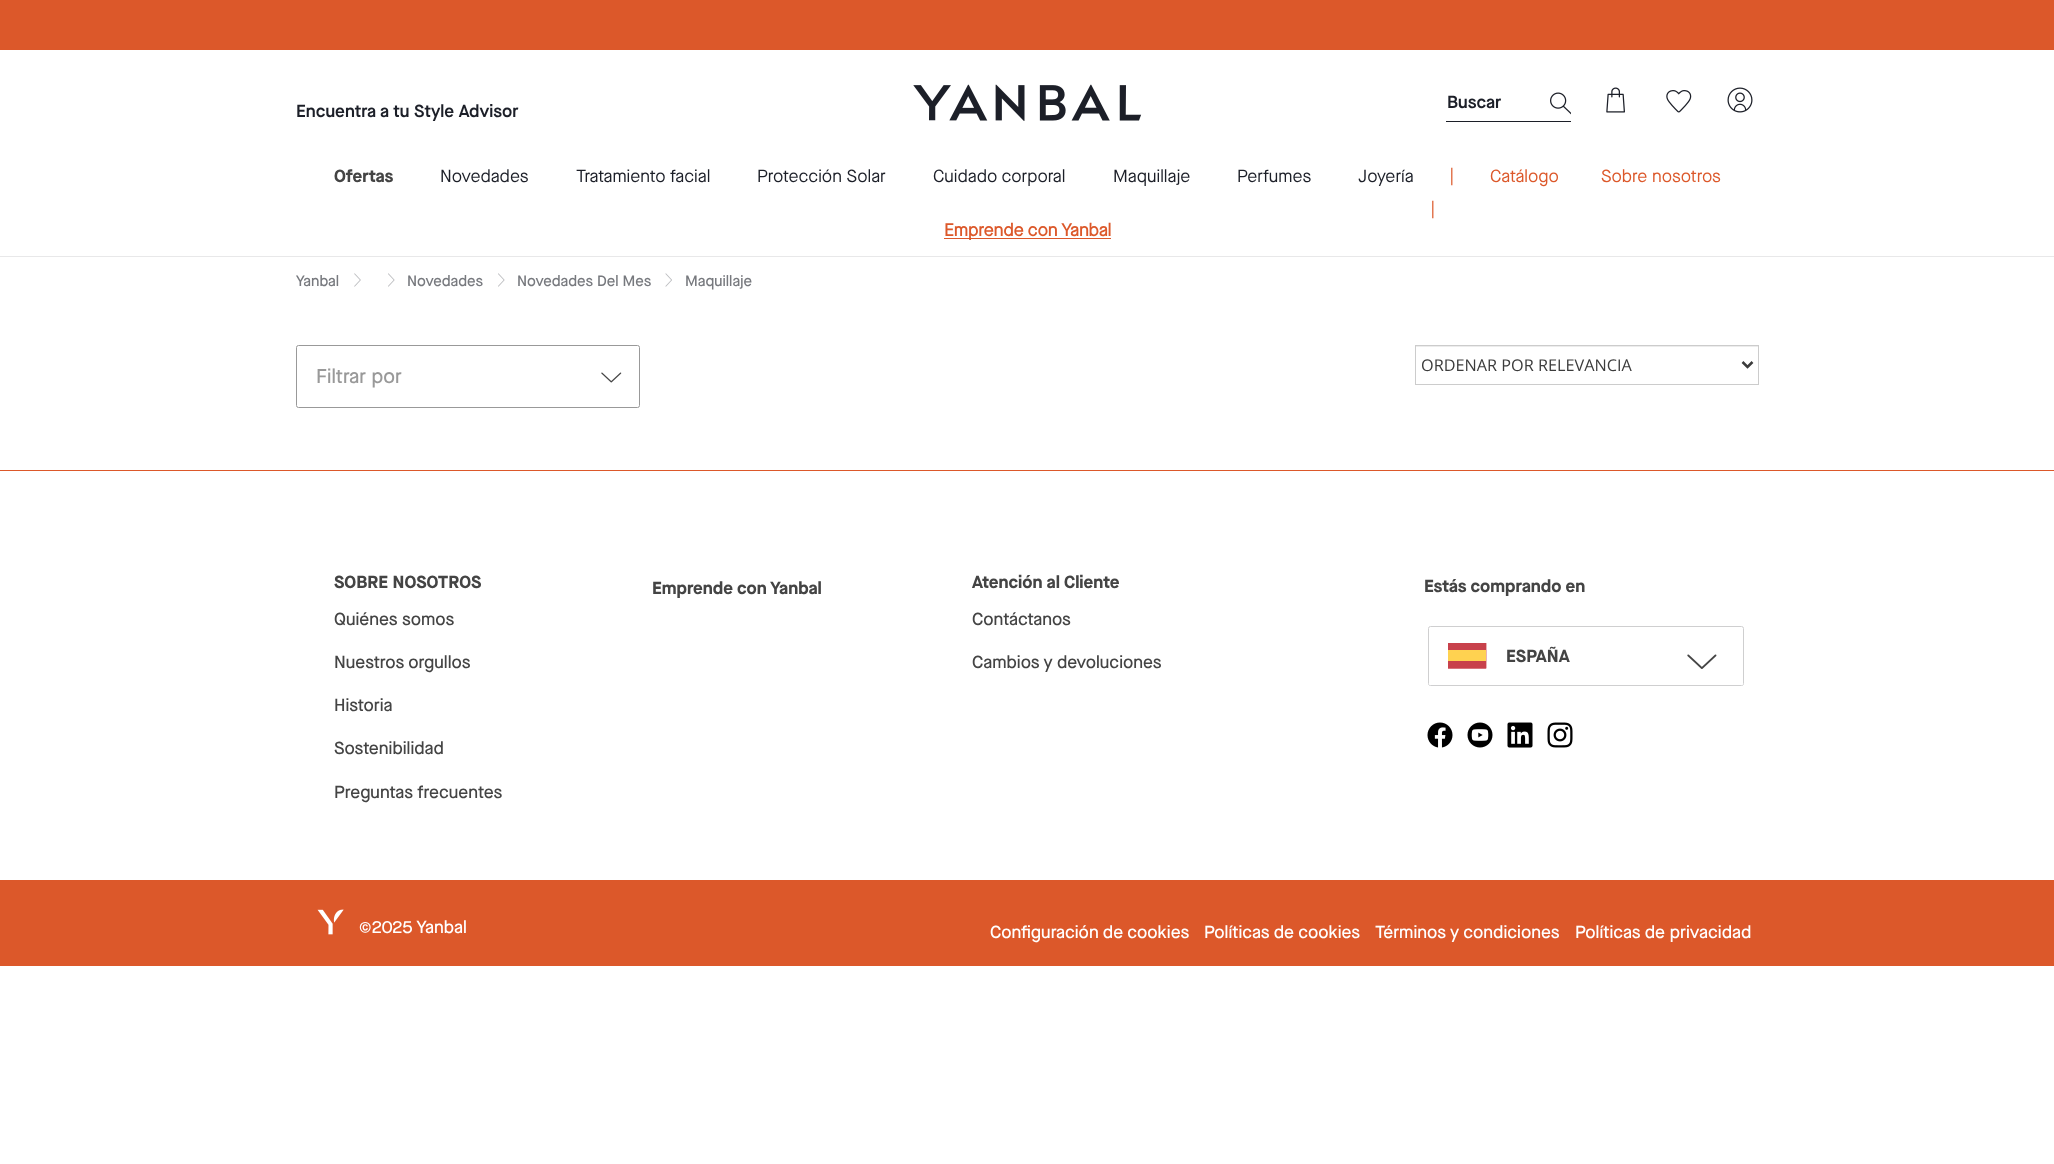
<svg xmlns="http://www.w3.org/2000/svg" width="2054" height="1164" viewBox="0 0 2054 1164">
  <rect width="100%" height="100%" fill="rgb(255,255,255)"/>
  <rect x="0" y="0" width="2054" height="50" fill="rgb(220,88,42)"/>
  <image x="913" y="84" width="229" height="37" href="pic1.png"/>
  <rect x="1446" y="121" width="125" height="1" fill="rgb(28,31,40)"/>
  <text x="1447" y="108" font-family="Maison Neue" font-size="17.5" font-weight="600" fill="rgb(28,31,40)">Buscar</text>
  <image x="1550" y="92" width="21" height="23" href="pic2.png"/>
  <image x="1606" y="87" width="19" height="26" href="pic3.png"/>
  <image x="1666" y="90" width="26" height="23" href="pic4.png"/>
  <image x="1727" y="87" width="26" height="26" href="pic5.png"/>
  <text x="296" y="117" font-family="Maison Neue" font-size="17.5" font-weight="600" fill="rgb(28,31,40)">Encuentra a tu Style Advisor</text>
  <rect x="0" y="256" width="2054" height="1" fill="rgb(232,232,233)"/>
  <text x="334" y="182" font-family="Maison Neue" font-size="17.5" font-weight="bold" fill="rgb(68,68,68)">Ofertas</text>
  <g font-family="Maison Neue" font-size="17.5" fill="rgb(28,31,40)">
    <text x="440" y="182">Novedades</text>
    <text x="576" y="182">Tratamiento facial</text>
    <text x="757" y="182">Protección Solar</text>
    <text x="933" y="182">Cuidado corporal</text>
    <text x="1113" y="182">Maquillaje</text>
    <text x="1237" y="182">Perfumes</text>
    <text x="1358" y="182">Joyería</text>
  </g>
  <text x="1447" y="181" font-family="Open Sans" font-size="17.5" fill="rgb(220,88,42)">|</text>
  <g font-family="Maison Neue" font-size="17.5" fill="rgb(220,88,42)">
    <text x="1490" y="182">Catálogo</text>
    <text x="1601" y="182">Sobre nosotros</text>
  </g>
  <text x="1428" y="214" font-family="Open Sans" font-size="17.5" fill="rgb(220,88,42)">|</text>
  <rect x="944" y="238" width="167" height="1" fill="rgb(220,88,42)"/>
  <text x="944" y="236" font-family="'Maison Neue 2'" font-size="17.5" font-weight="bold" fill="rgb(220,88,42)">Emprende con Yanbal</text>
  <text x="296" y="286" font-family="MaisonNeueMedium" font-size="15" font-weight="500" fill="rgb(119,121,126)">Yanbal</text>
  <image x="354" y="273" width="7" height="14" href="pic6.png"/>
  <image x="388" y="273" width="7" height="14" href="pic7.png"/>
  <text x="407" y="286" font-family="MaisonNeueMedium" font-size="15" font-weight="500" fill="rgb(119,121,126)">Novedades</text>
  <image x="498" y="273" width="7" height="14" href="pic7.png"/>
  <text x="517" y="286" font-family="MaisonNeueMedium" font-size="15" font-weight="500" fill="rgb(119,121,126)">Novedades Del Mes</text>
  <image x="665" y="273" width="7" height="14" href="pic8.png"/>
  <text x="685" y="286" font-family="MaisonNeueMedium" font-size="15" font-weight="500" fill="rgb(119,121,126)">Maquillaje</text>
  <rect x="1416" y="346" width="342" height="1" fill="rgb(236,236,236)"/>
  <rect x="1415.5" y="345.5" width="343" height="39" fill="none" stroke="rgb(204,204,204)"/>
  <path d="M1742.5 362L1747.5 367L1752.5 362" fill="none" stroke="rgb(60,60,60)" stroke-width="2.5"/>
  <text x="1421" y="371" font-family="Open Sans" font-size="16.25" fill="rgb(60,60,60)">ORDENAR POR RELEVANCIA</text>
  <rect x="296.5" y="345.5" width="343" height="62" rx="2" fill="none" stroke="rgb(153,153,153)"/>
  <text x="316" y="383" font-family="MaisonNeueMedium" font-size="20" font-weight="500" fill="rgb(153,153,153)">Filtrar por</text>
  <image x="601" y="372" width="21" height="11" href="pic9.png"/>
  <rect x="0" y="470" width="2054" height="1" fill="rgb(220,88,42)"/>
  <text x="334" y="588" font-family="Maison Neue" font-size="17.5" font-weight="bold" fill="rgb(68,68,68)">SOBRE NOSOTROS</text>
  <g font-family="MaisonNeueMedium" font-size="17.5" font-weight="500" fill="rgb(68,68,68)">
    <text x="334" y="625">Quiénes somos</text>
    <text x="334" y="668">Nuestros orgullos</text>
    <text x="334" y="711">Historia</text>
    <text x="334" y="754">Sostenibilidad</text>
    <text x="334" y="798">Preguntas frecuentes</text>
  </g>
  <g font-family="Maison Neue" font-size="17.5" font-weight="bold" fill="rgb(68,68,68)">
    <text x="652" y="594">Emprende con Yanbal</text>
    <text x="972" y="588">Atención al Cliente</text>
  </g>
  <g font-family="MaisonNeueMedium" font-size="17.5" font-weight="500" fill="rgb(68,68,68)">
    <text x="972" y="625">Contáctanos</text>
    <text x="972" y="668">Cambios y devoluciones</text>
  </g>
  <text x="1424" y="592" font-family="Maison Neue" font-size="17.5" font-weight="bold" fill="rgb(68,68,68)">Estás comprando en</text>
  <rect x="1428.5" y="626.5" width="315" height="59" rx="2" fill="none" stroke="rgb(207,207,208)"/>
  <rect x="1429" y="628" width="314" height="57" rx="1" fill="rgb(255,255,255)"/>
  <image x="1448" y="643" width="39" height="26" href="pic10.png"/>
  <text x="1506" y="662" font-family="Maison Neue" font-size="17.5" font-weight="bold" fill="rgb(68,68,68)">ESPAÑA</text>
  <image x="1687" y="654" width="30" height="15" href="pic11.png"/>
  <image x="1427" y="722" width="26" height="26" href="pic12.png"/>
  <image x="1467" y="722" width="26" height="26" href="pic13.png"/>
  <image x="1507" y="722" width="26" height="26" href="pic14.png"/>
  <image x="1547" y="722" width="26" height="26" href="pic15.png"/>
  <rect x="0" y="880" width="2054" height="86" fill="rgb(220,88,42)"/>
  <image x="317" y="909" width="27" height="26" href="pic16.png"/>
  <g font-family="MaisonNeueMedium" font-size="17.5" font-weight="500" fill="rgb(255,255,255)">
    <text x="359" y="933">©2025 Yanbal</text>
    <text x="990" y="938">Configuración de cookies</text>
    <text x="1204" y="938">Políticas de cookies</text>
    <text x="1375" y="938">Términos y condiciones</text>
    <text x="1575" y="938">Políticas de privacidad</text>
  </g>
</svg>
